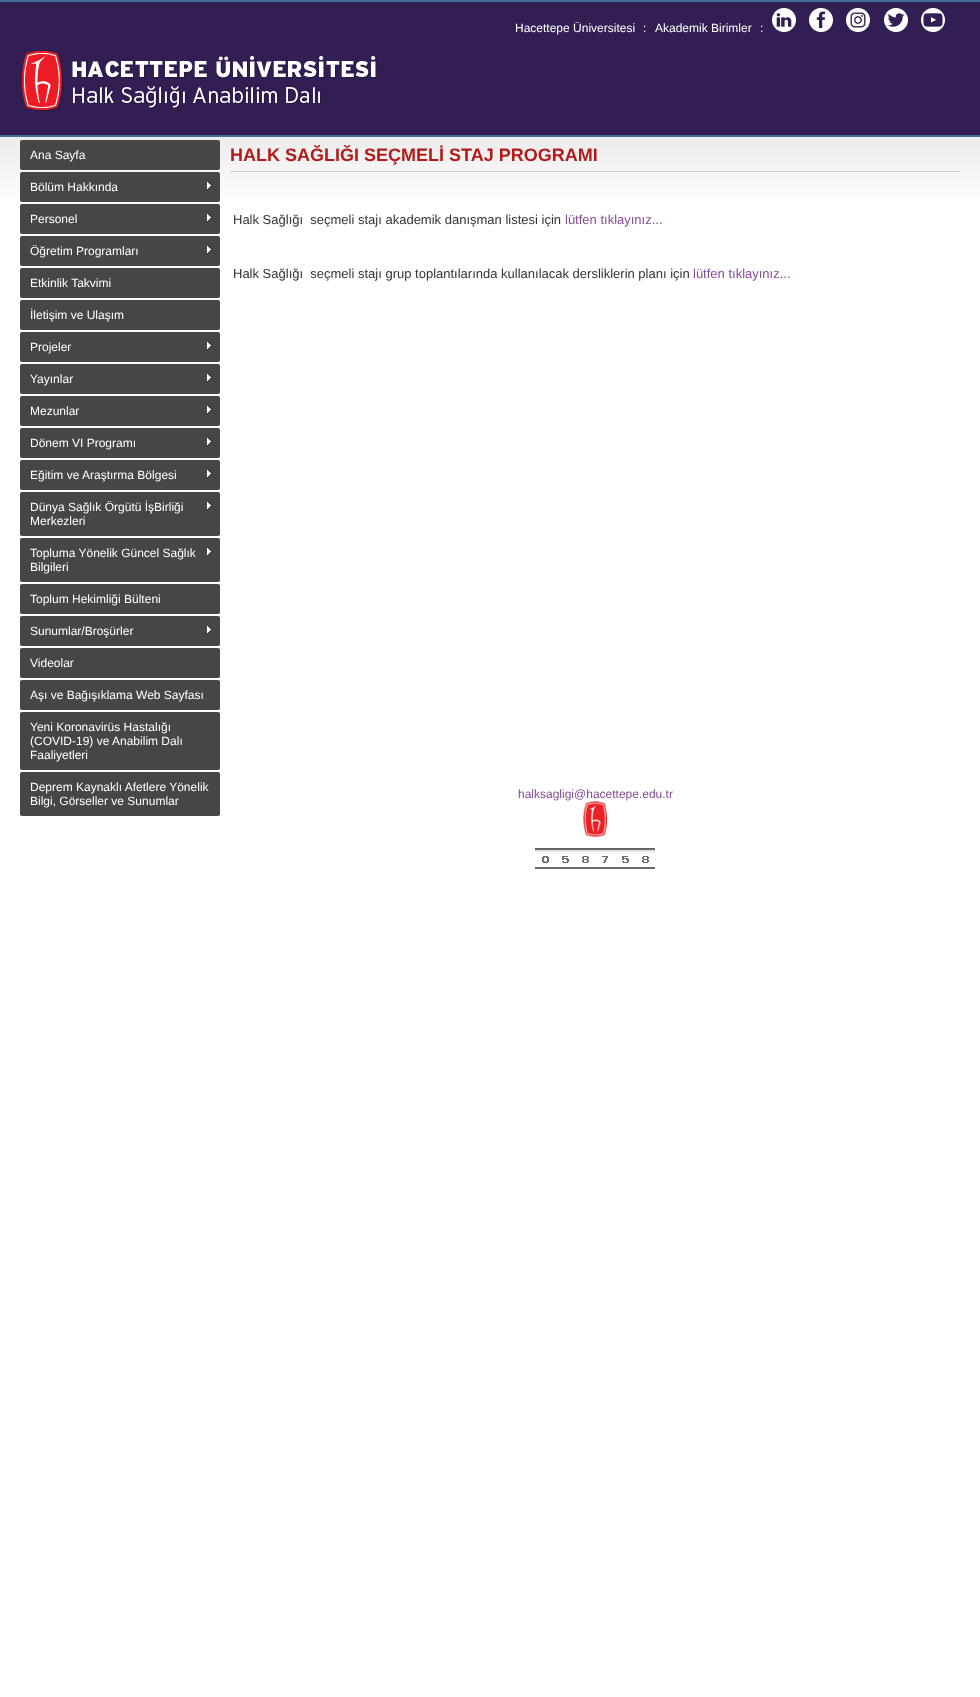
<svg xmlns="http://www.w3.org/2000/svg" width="980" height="1697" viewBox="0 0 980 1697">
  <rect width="100%" height="100%" fill="rgb(255,255,255)"/>
  <image x="0" y="0" width="980" height="197" href="pic1.png"/>
  <g font-family="Liberation Sans" font-size="12" fill="rgb(255,255,255)">
    <text x="515" y="32">Hacettepe Üniversitesi</text>
    <text x="643" y="32">:</text>
    <text x="655" y="32">Akademik Birimler</text>
    <text x="760" y="32">:</text>
  </g>
  <image x="772" y="8" width="24" height="24" href="pic2.png"/>
  <image x="809" y="8" width="24" height="24" href="pic3.png"/>
  <image x="846" y="8" width="24" height="24" href="pic4.png"/>
  <image x="884" y="8" width="24" height="24" href="pic5.png"/>
  <image x="921" y="8" width="24" height="24" href="pic6.png"/>
  <image x="22" y="51" width="355" height="61" href="pic7.png"/>
  <rect x="20" y="140" width="200" height="30" rx="2" fill="rgb(70,70,70)"/>
  <text x="30" y="159" font-family="Liberation Sans" font-size="12" fill="rgb(255,255,255)">Ana Sayfa</text>
  <rect x="20" y="172" width="200" height="30" rx="2" fill="rgb(70,70,70)"/>
  <text x="30" y="191" font-family="Liberation Sans" font-size="12" fill="rgb(255,255,255)">Bölüm Hakkında</text>
  <image x="207" y="182" width="4" height="7" href="pic8.png"/>
  <rect x="20" y="204" width="200" height="30" rx="2" fill="rgb(70,70,70)"/>
  <text x="30" y="223" font-family="Liberation Sans" font-size="12" fill="rgb(255,255,255)">Personel</text>
  <image x="207" y="214" width="4" height="7" href="pic8.png"/>
  <rect x="20" y="236" width="200" height="30" rx="2" fill="rgb(70,70,70)"/>
  <text x="30" y="255" font-family="Liberation Sans" font-size="12" fill="rgb(255,255,255)">Öğretim Programları</text>
  <image x="207" y="246" width="4" height="7" href="pic8.png"/>
  <rect x="20" y="268" width="200" height="30" rx="2" fill="rgb(70,70,70)"/>
  <text x="30" y="287" font-family="Liberation Sans" font-size="12" fill="rgb(255,255,255)">Etkinlik Takvimi</text>
  <rect x="20" y="300" width="200" height="30" rx="2" fill="rgb(70,70,70)"/>
  <text x="30" y="319" font-family="Liberation Sans" font-size="12" fill="rgb(255,255,255)">İletişim ve Ulaşım</text>
  <rect x="20" y="332" width="200" height="30" rx="2" fill="rgb(70,70,70)"/>
  <text x="30" y="351" font-family="Liberation Sans" font-size="12" fill="rgb(255,255,255)">Projeler</text>
  <image x="207" y="342" width="4" height="7" href="pic8.png"/>
  <rect x="20" y="364" width="200" height="30" rx="2" fill="rgb(70,70,70)"/>
  <text x="30" y="383" font-family="Liberation Sans" font-size="12" fill="rgb(255,255,255)">Yayınlar</text>
  <image x="207" y="374" width="4" height="7" href="pic8.png"/>
  <rect x="20" y="396" width="200" height="30" rx="2" fill="rgb(70,70,70)"/>
  <text x="30" y="415" font-family="Liberation Sans" font-size="12" fill="rgb(255,255,255)">Mezunlar</text>
  <image x="207" y="406" width="4" height="7" href="pic8.png"/>
  <rect x="20" y="428" width="200" height="30" rx="2" fill="rgb(70,70,70)"/>
  <text x="30" y="447" font-family="Liberation Sans" font-size="12" fill="rgb(255,255,255)">Dönem VI Programı</text>
  <image x="207" y="438" width="4" height="7" href="pic8.png"/>
  <rect x="20" y="460" width="200" height="30" rx="2" fill="rgb(70,70,70)"/>
  <text x="30" y="479" font-family="Liberation Sans" font-size="12" fill="rgb(255,255,255)">Eğitim ve Araştırma Bölgesi</text>
  <image x="207" y="470" width="4" height="7" href="pic8.png"/>
  <rect x="20" y="492" width="200" height="44" rx="2" fill="rgb(70,70,70)"/>
  <text x="30" y="511" font-family="Liberation Sans" font-size="12" fill="rgb(255,255,255)">Dünya Sağlık Örgütü İşBirliği</text>
  <image x="207" y="502" width="4" height="7" href="pic8.png"/>
  <text x="30" y="525" font-family="Liberation Sans" font-size="12" fill="rgb(255,255,255)">Merkezleri</text>
  <rect x="20" y="538" width="200" height="44" rx="2" fill="rgb(70,70,70)"/>
  <text x="30" y="557" font-family="Liberation Sans" font-size="12" fill="rgb(255,255,255)">Topluma Yönelik Güncel Sağlık</text>
  <image x="207" y="548" width="4" height="7" href="pic8.png"/>
  <text x="30" y="571" font-family="Liberation Sans" font-size="12" fill="rgb(255,255,255)">Bilgileri</text>
  <rect x="20" y="584" width="200" height="30" rx="2" fill="rgb(70,70,70)"/>
  <text x="30" y="603" font-family="Liberation Sans" font-size="12" fill="rgb(255,255,255)">Toplum Hekimliği Bülteni</text>
  <rect x="20" y="616" width="200" height="30" rx="2" fill="rgb(70,70,70)"/>
  <text x="30" y="635" font-family="Liberation Sans" font-size="12" fill="rgb(255,255,255)">Sunumlar/Broşürler</text>
  <image x="207" y="626" width="4" height="7" href="pic8.png"/>
  <rect x="20" y="648" width="200" height="30" rx="2" fill="rgb(70,70,70)"/>
  <text x="30" y="667" font-family="Liberation Sans" font-size="12" fill="rgb(255,255,255)">Videolar</text>
  <rect x="20" y="680" width="200" height="30" rx="2" fill="rgb(70,70,70)"/>
  <text x="30" y="699" font-family="Liberation Sans" font-size="12" fill="rgb(255,255,255)">Aşı ve Bağışıklama Web Sayfası</text>
  <rect x="20" y="712" width="200" height="58" rx="2" fill="rgb(70,70,70)"/>
  <g font-family="Liberation Sans" font-size="12" fill="rgb(255,255,255)">
    <text>
      <tspan x="30" y="731">Yeni Koronavirüs Hastalığı</tspan>
      <tspan x="30" y="745">(COVID-19) ve Anabilim Dalı</tspan>
      <tspan x="30" y="759">Faaliyetleri</tspan>
    </text>
  </g>
  <rect x="20" y="772" width="200" height="44" rx="2" fill="rgb(70,70,70)"/>
  <g font-family="Liberation Sans" font-size="12" fill="rgb(255,255,255)">
    <text>
      <tspan x="30" y="791">Deprem Kaynaklı Afetlere Yönelik</tspan>
      <tspan x="30" y="805">Bilgi, Görseller ve Sunumlar</tspan>
    </text>
  </g>
  <rect x="230" y="171" width="730" height="1" fill="rgb(204,204,204)"/>
  <text x="230" y="161" font-family="Liberation Sans" font-size="18" font-weight="bold" fill="rgb(179,27,27)">HALK SAĞLIĞI SEÇMELİ STAJ PROGRAMI</text>
  <text x="233" y="224" font-family="Liberation Sans" font-size="13" fill="rgb(51,51,51)" xml:space="preserve">Halk Sağlığı  seçmeli stajı akademik danışman listesi için</text>
  <text x="565" y="224" font-family="Liberation Sans" font-size="13" fill="rgb(134,74,151)">lütfen tıklayınız...</text>
  <text x="233" y="278" font-family="Liberation Sans" font-size="13" fill="rgb(51,51,51)" xml:space="preserve">Halk Sağlığı  seçmeli stajı grup toplantılarında kullanılacak dersliklerin planı için</text>
  <text x="693" y="278" font-family="Liberation Sans" font-size="13" fill="rgb(134,74,151)">lütfen tıklayınız...</text>
  <text x="518" y="798" font-family="Liberation Sans" font-size="12" fill="rgb(134,74,151)">halksagligi@hacettepe.edu.tr</text>
  <image x="583" y="801" width="24" height="36" href="pic9.png"/>
  <image x="535" y="848" width="120" height="21" href="pic10.png"/>
</svg>
